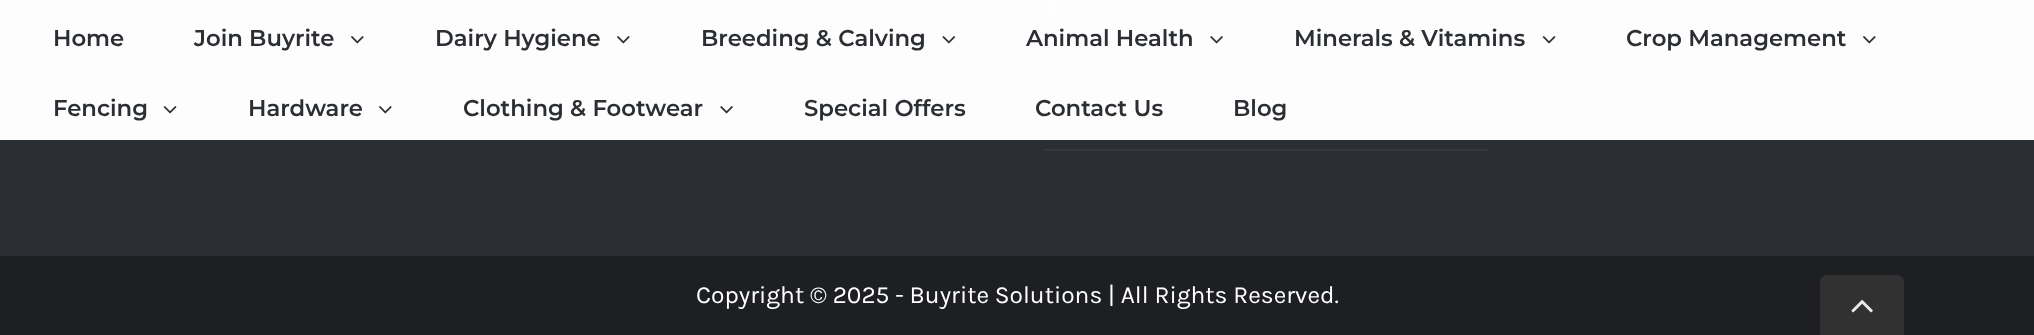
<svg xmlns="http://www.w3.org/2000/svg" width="2034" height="335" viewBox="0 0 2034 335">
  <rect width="100%" height="100%" fill="rgb(29,31,34)"/>
  <rect x="0" y="140" width="2034" height="116" fill="rgb(43,46,50)"/>
  <rect x="0" y="0" width="2034" height="140" fill="rgb(253,253,253)"/>
  <image x="1045" y="0" width="11" height="16" href="pic1.png"/>
  <rect x="1045" y="149" width="443" height="2" fill="rgb(53,56,60)"/>
  <image x="1045" y="92" width="11" height="19" href="pic2.png"/>
  <g font-family="Montserrat" font-size="22.75" font-weight="600" fill="rgb(43,46,50)">
    <text x="53" y="46">Home</text>
    <text x="194" y="46">Join Buyrite</text>
  </g>
  <image x="351" y="36" width="13" height="8" href="pic3.png"/>
  <text x="435" y="46" font-family="Montserrat" font-size="22.75" font-weight="600" fill="rgb(43,46,50)">Dairy Hygiene</text>
  <image x="617" y="36" width="13" height="8" href="pic3.png"/>
  <text x="701" y="46" font-family="Montserrat" font-size="22.75" font-weight="600" fill="rgb(43,46,50)">Breeding &amp; Calving</text>
  <image x="942" y="36" width="14" height="8" href="pic4.png"/>
  <text x="1026" y="46" font-family="Montserrat" font-size="22.75" font-weight="600" fill="rgb(43,46,50)">Animal Health</text>
  <image x="1210" y="36" width="13" height="8" href="pic5.png"/>
  <text x="1294" y="46" font-family="Montserrat" font-size="22.75" font-weight="600" fill="rgb(43,46,50)">Minerals &amp; Vitamins</text>
  <image x="1542" y="36" width="14" height="8" href="pic6.png"/>
  <text x="1626" y="46" font-family="Montserrat" font-size="22.75" font-weight="600" fill="rgb(43,46,50)">Crop Management</text>
  <image x="1863" y="36" width="13" height="8" href="pic3.png"/>
  <text x="53" y="116" font-family="Montserrat" font-size="22.75" font-weight="600" fill="rgb(43,46,50)">Fencing</text>
  <image x="163" y="106" width="14" height="8" href="pic6.png"/>
  <text x="248" y="116" font-family="Montserrat" font-size="22.75" font-weight="600" fill="rgb(43,46,50)">Hardware</text>
  <image x="379" y="106" width="13" height="8" href="pic3.png"/>
  <text x="463" y="116" font-family="Montserrat" font-size="22.75" font-weight="600" fill="rgb(43,46,50)">Clothing &amp; Footwear</text>
  <image x="720" y="106" width="13" height="8" href="pic5.png"/>
  <g font-family="Montserrat" font-size="22.75" font-weight="600" fill="rgb(43,46,50)">
    <text x="804" y="116">Special Offers</text>
    <text x="1035" y="116">Contact Us</text>
    <text x="1233" y="116">Blog</text>
  </g>
  <text x="696" y="303" font-family="Karla" font-size="24.5" fill="rgb(255,255,255)">Copyright © 2025 - Buyrite Solutions | All Rights Reserved.</text>
  <path d="M1827 275H1897C1901 275 1904 278 1904 282V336H1820V282C1820 278 1823 275 1827 275Z" fill="rgb(49,49,49)"/>
  <image x="1851" y="300" width="22" height="13" href="pic7.png"/>
</svg>
